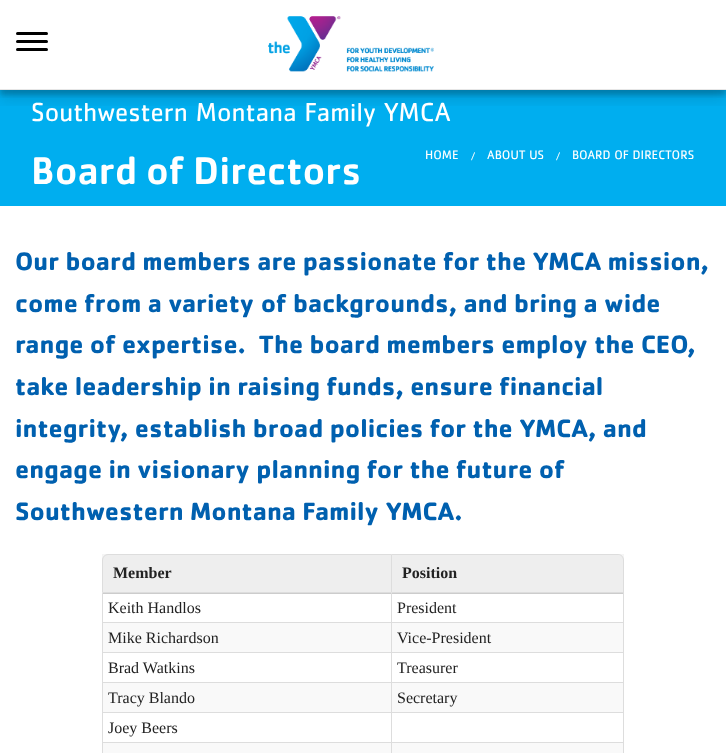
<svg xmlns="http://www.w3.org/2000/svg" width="726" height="753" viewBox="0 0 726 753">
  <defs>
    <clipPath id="clip1"><rect x="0" y="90" width="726" height="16"/></clipPath>
    <clipPath id="clip2"><rect x="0" y="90" width="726" height="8"/></clipPath>
  </defs>
  <rect width="100%" height="100%" fill="rgb(255,255,255)"/>
  <rect x="0" y="90" width="726" height="116" fill="rgb(0,174,239)"/>
  <g clip-path="url(#clip1)">
    <rect x="0" y="10" width="726" height="90" fill="rgba(0,0,0,0.1)" filter="blur(7px)"/>
  </g>
  <g clip-path="url(#clip2)">
    <rect x="0" y="5" width="726" height="90" fill="rgba(0,0,0,0.2)" filter="blur(2.5px)"/>
  </g>
  <rect x="0" y="89" width="726" height="1" fill="rgb(230,230,230)"/>
  <rect x="16" y="32" width="32" height="3" rx="1.5" fill="rgb(0,0,0)"/>
  <rect x="16" y="40" width="32" height="3" rx="1.5" fill="rgb(0,0,0)"/>
  <rect x="16" y="48" width="32" height="3" rx="1.5" fill="rgb(0,0,0)"/>
  <image x="268" y="16" width="166" height="56" href="pic1.png"/>
  <text x="31" y="121" font-family="'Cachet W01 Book'" font-size="27" fill="rgb(255,255,255)">Southwestern Montana Family YMCA</text>
  <text x="31" y="184" font-family="'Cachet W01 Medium'" font-size="40" font-weight="500" fill="rgb(255,255,255)">Board of Directors</text>
  <text x="425" y="159" font-family="'Cachet W01 Book'" font-size="12.75" fill="rgb(255,255,255)">HOME</text>
  <text x="471" y="160" font-family="'Cachet W01 Book'" font-size="11" fill="rgb(255,255,255)">/</text>
  <text x="487" y="159" font-family="'Cachet W01 Book'" font-size="12.75" fill="rgb(255,255,255)">ABOUT US</text>
  <text x="556" y="160" font-family="'Cachet W01 Book'" font-size="11" fill="rgb(255,255,255)">/</text>
  <text x="572" y="159" font-family="'Cachet W01 Book'" font-size="12.75" fill="rgb(255,255,255)">BOARD OF DIRECTORS</text>
  <g font-family="'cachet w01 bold'" font-size="26" font-weight="bold" fill="rgb(0,96,175)">
    <text xml:space="preserve"><tspan x="15" y="270">Our board members are passionate for the YMCA mission,</tspan><tspan x="15" y="312">come from a variety of backgrounds, and bring a wide</tspan><tspan x="15" y="353">range of expertise.  The board members employ the CEO,</tspan><tspan x="15" y="395">take leadership in raising funds, ensure financial</tspan><tspan x="15" y="437">integrity, establish broad policies for the YMCA, and</tspan><tspan x="15" y="478">engage in visionary planning for the future of</tspan><tspan x="15" y="520">Southwestern Montana Family YMCA.</tspan></text>
  </g>
  <rect x="102" y="554" width="522" height="6" fill="rgb(245,245,245)"/>
  <path d="M108 554.5H391.5V592.5H102.5V560C102.5 557 105 554.5 108 554.5Z" fill="rgb(238,238,238)" stroke="rgb(221,221,221)"/>
  <text x="113" y="578" font-family="Liberation Serif" font-size="16" font-weight="bold" fill="rgb(34,34,34)">Member</text>
  <path d="M392 554H618C621.5 554 624 556.5 624 560V593H392Z" fill="rgb(238,238,238)"/>
  <path d="M392 554H618C621 554 624 557 624 560V593H392ZM392 555H618C621 555 623 557 623 560V592H392Z" fill="rgb(221,221,221)" fill-rule="evenodd"/>
  <text x="402" y="578" font-family="Liberation Serif" font-size="16" font-weight="bold" fill="rgb(34,34,34)">Position</text>
  <rect x="102" y="593" width="522" height="1" fill="rgb(204,204,204)"/>
  <rect x="391" y="593" width="1" height="30" fill="rgb(221,221,221)"/>
  <rect x="102" y="622" width="290" height="1" fill="rgb(221,221,221)"/>
  <rect x="102" y="593" width="1" height="30" fill="rgb(221,221,221)"/>
  <text x="108" y="613" font-family="Liberation Serif" font-size="16" fill="rgb(34,34,34)">Keith Handlos</text>
  <rect x="623" y="593" width="1" height="160" fill="rgb(221,221,221)"/>
  <rect x="392" y="622" width="232" height="1" fill="rgb(221,221,221)"/>
  <text x="397" y="613" font-family="Liberation Serif" font-size="16" fill="rgb(34,34,34)">President</text>
  <rect x="103" y="623" width="520" height="29" fill="rgb(249,249,249)"/>
  <rect x="391" y="623" width="1" height="60" fill="rgb(221,221,221)"/>
  <rect x="102" y="652" width="522" height="1" fill="rgb(221,221,221)"/>
  <rect x="102" y="623" width="1" height="30" fill="rgb(221,221,221)"/>
  <g font-family="Liberation Serif" font-size="16" fill="rgb(34,34,34)">
    <text x="108" y="643">Mike Richardson</text>
    <text x="397" y="643">Vice-President</text>
  </g>
  <rect x="102" y="682" width="522" height="1" fill="rgb(221,221,221)"/>
  <rect x="102" y="653" width="1" height="30" fill="rgb(221,221,221)"/>
  <g font-family="Liberation Serif" font-size="16" fill="rgb(34,34,34)">
    <text x="108" y="673">Brad Watkins</text>
    <text x="397" y="673">Treasurer</text>
  </g>
  <rect x="103" y="683" width="520" height="29" fill="rgb(249,249,249)"/>
  <rect x="391" y="683" width="1" height="60" fill="rgb(221,221,221)"/>
  <rect x="102" y="712" width="522" height="1" fill="rgb(221,221,221)"/>
  <rect x="102" y="683" width="1" height="30" fill="rgb(221,221,221)"/>
  <g font-family="Liberation Serif" font-size="16" fill="rgb(34,34,34)">
    <text x="108" y="703">Tracy Blando</text>
    <text x="397" y="703">Secretary</text>
  </g>
  <rect x="102" y="742" width="522" height="1" fill="rgb(221,221,221)"/>
  <rect x="102" y="713" width="1" height="40" fill="rgb(221,221,221)"/>
  <text x="108" y="733" font-family="Liberation Serif" font-size="16" fill="rgb(34,34,34)">Joey Beers</text>
  <rect x="103" y="743" width="520" height="10" fill="rgb(249,249,249)"/>
  <rect x="391" y="743" width="1" height="10" fill="rgb(221,221,221)"/>
</svg>
